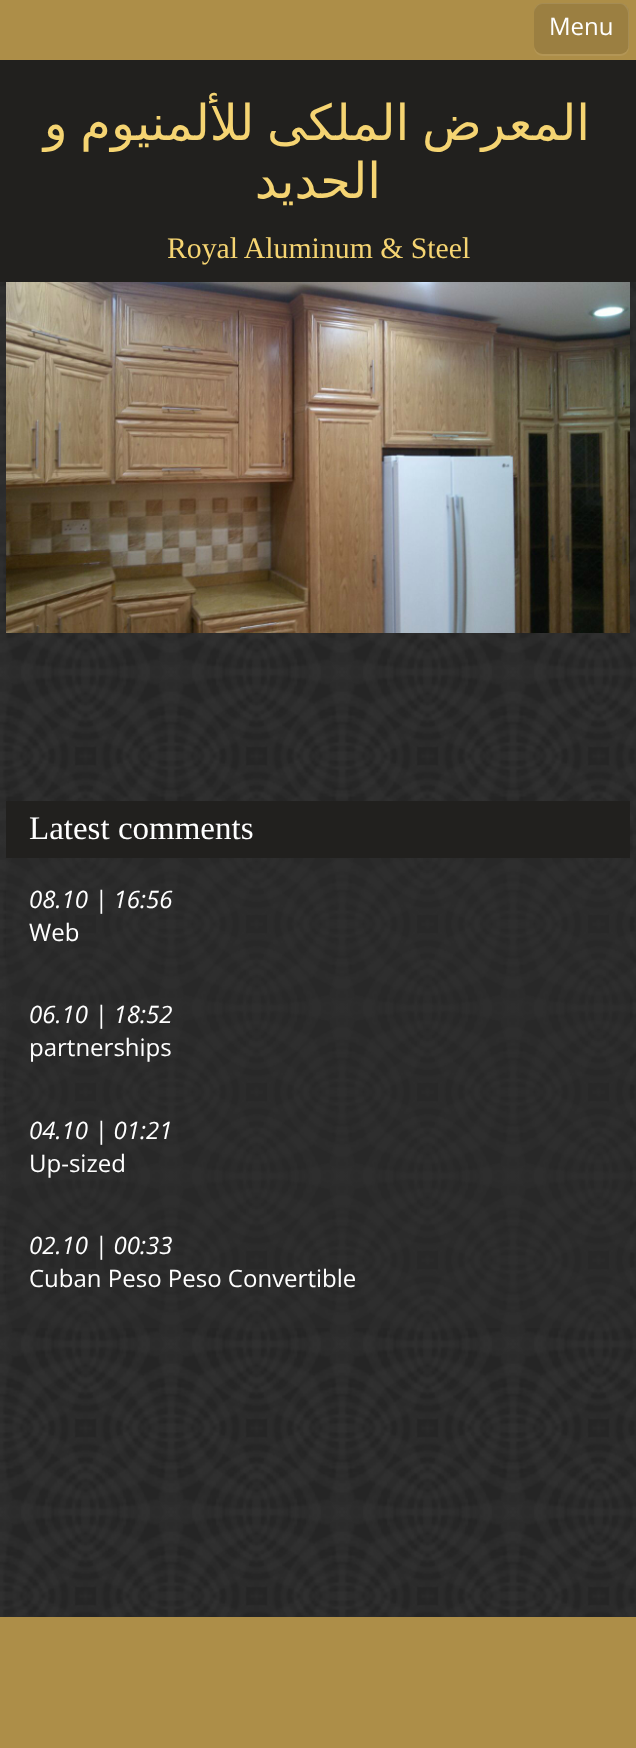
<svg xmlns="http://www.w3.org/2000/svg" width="636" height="1748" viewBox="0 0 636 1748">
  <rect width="100%" height="100%" fill="rgb(33,33,33)"/>
  <image x="0" y="282" width="636" height="1335" href="pic1.png"/>
  <rect x="0" y="60" width="636" height="222" fill="rgb(33,32,30)"/>
  <rect x="0" y="0" width="636" height="60" fill="rgb(173,142,72)"/>
  <path d="M534 45V47C534 52 538 56 543 56H620C625 56 629 52 629 47V14L628 11V45C628 50 624 54 620 54H543C538 54 534 50 534 45Z" fill="rgb(179,150,86)"/>
  <rect x="534" y="3" width="95" height="51" rx="9" fill="rgb(155,127,65)"/>
  <path d="M543 4H620C624 4 628 9 628 14V46C628 48 628 49 627 51C628 49 629 47 629 45V12C629 7 625 3 620 3H543C538 3 534 7 534 12V14C534 9 538 4 543 4Z" fill="rgba(255,255,255,0.1)"/>
  <text x="549" y="35" font-family="Open Sans" font-size="24" fill="rgb(255,255,255)">Menu</text>
  <g font-family="DejaVu Sans" font-size="49.4" direction="rtl" fill="rgb(245,212,114)">
    <text x="590" y="140" word-spacing="-3">المعرض الملكى للألمنيوم و</text>
    <text x="381" y="198">الحديد</text>
  </g>
  <text x="167" y="258" font-family="Liberation Serif" font-size="29.75" fill="rgb(245,212,114)">Royal Aluminum &amp; Steel</text>
  <image x="6" y="282" width="624" height="351" href="pic2.png"/>
  <rect x="6" y="801" width="624" height="57" fill="rgb(33,32,30)"/>
  <text x="29" y="839" font-family="Liberation Serif" font-size="33" fill="rgb(255,255,255)">Latest comments</text>
  <rect x="6" y="858" width="624" height="470" fill="rgba(46,45,44,0.4)"/>
  <text x="29" y="908" font-family="Open Sans" font-size="24" font-style="italic" fill="rgb(255,255,255)">08.10 | 16:56</text>
  <text x="29" y="941" font-family="Open Sans" font-size="24" fill="rgb(255,255,255)">Web</text>
  <text x="29" y="1023" font-family="Open Sans" font-size="24" font-style="italic" fill="rgb(255,255,255)">06.10 | 18:52</text>
  <text x="29" y="1056" font-family="Open Sans" font-size="24" fill="rgb(255,255,255)">partnerships</text>
  <text x="29" y="1139" font-family="Open Sans" font-size="24" font-style="italic" fill="rgb(255,255,255)">04.10 | 01:21</text>
  <text x="29" y="1172" font-family="Open Sans" font-size="24" fill="rgb(255,255,255)">Up-sized</text>
  <text x="29" y="1254" font-family="Open Sans" font-size="24" font-style="italic" fill="rgb(255,255,255)">02.10 | 00:33</text>
  <text x="29" y="1287" font-family="Open Sans" font-size="24" fill="rgb(255,255,255)">Cuban Peso Peso Convertible</text>
  <rect x="0" y="1617" width="636" height="131" fill="rgb(173,142,72)"/>
</svg>
